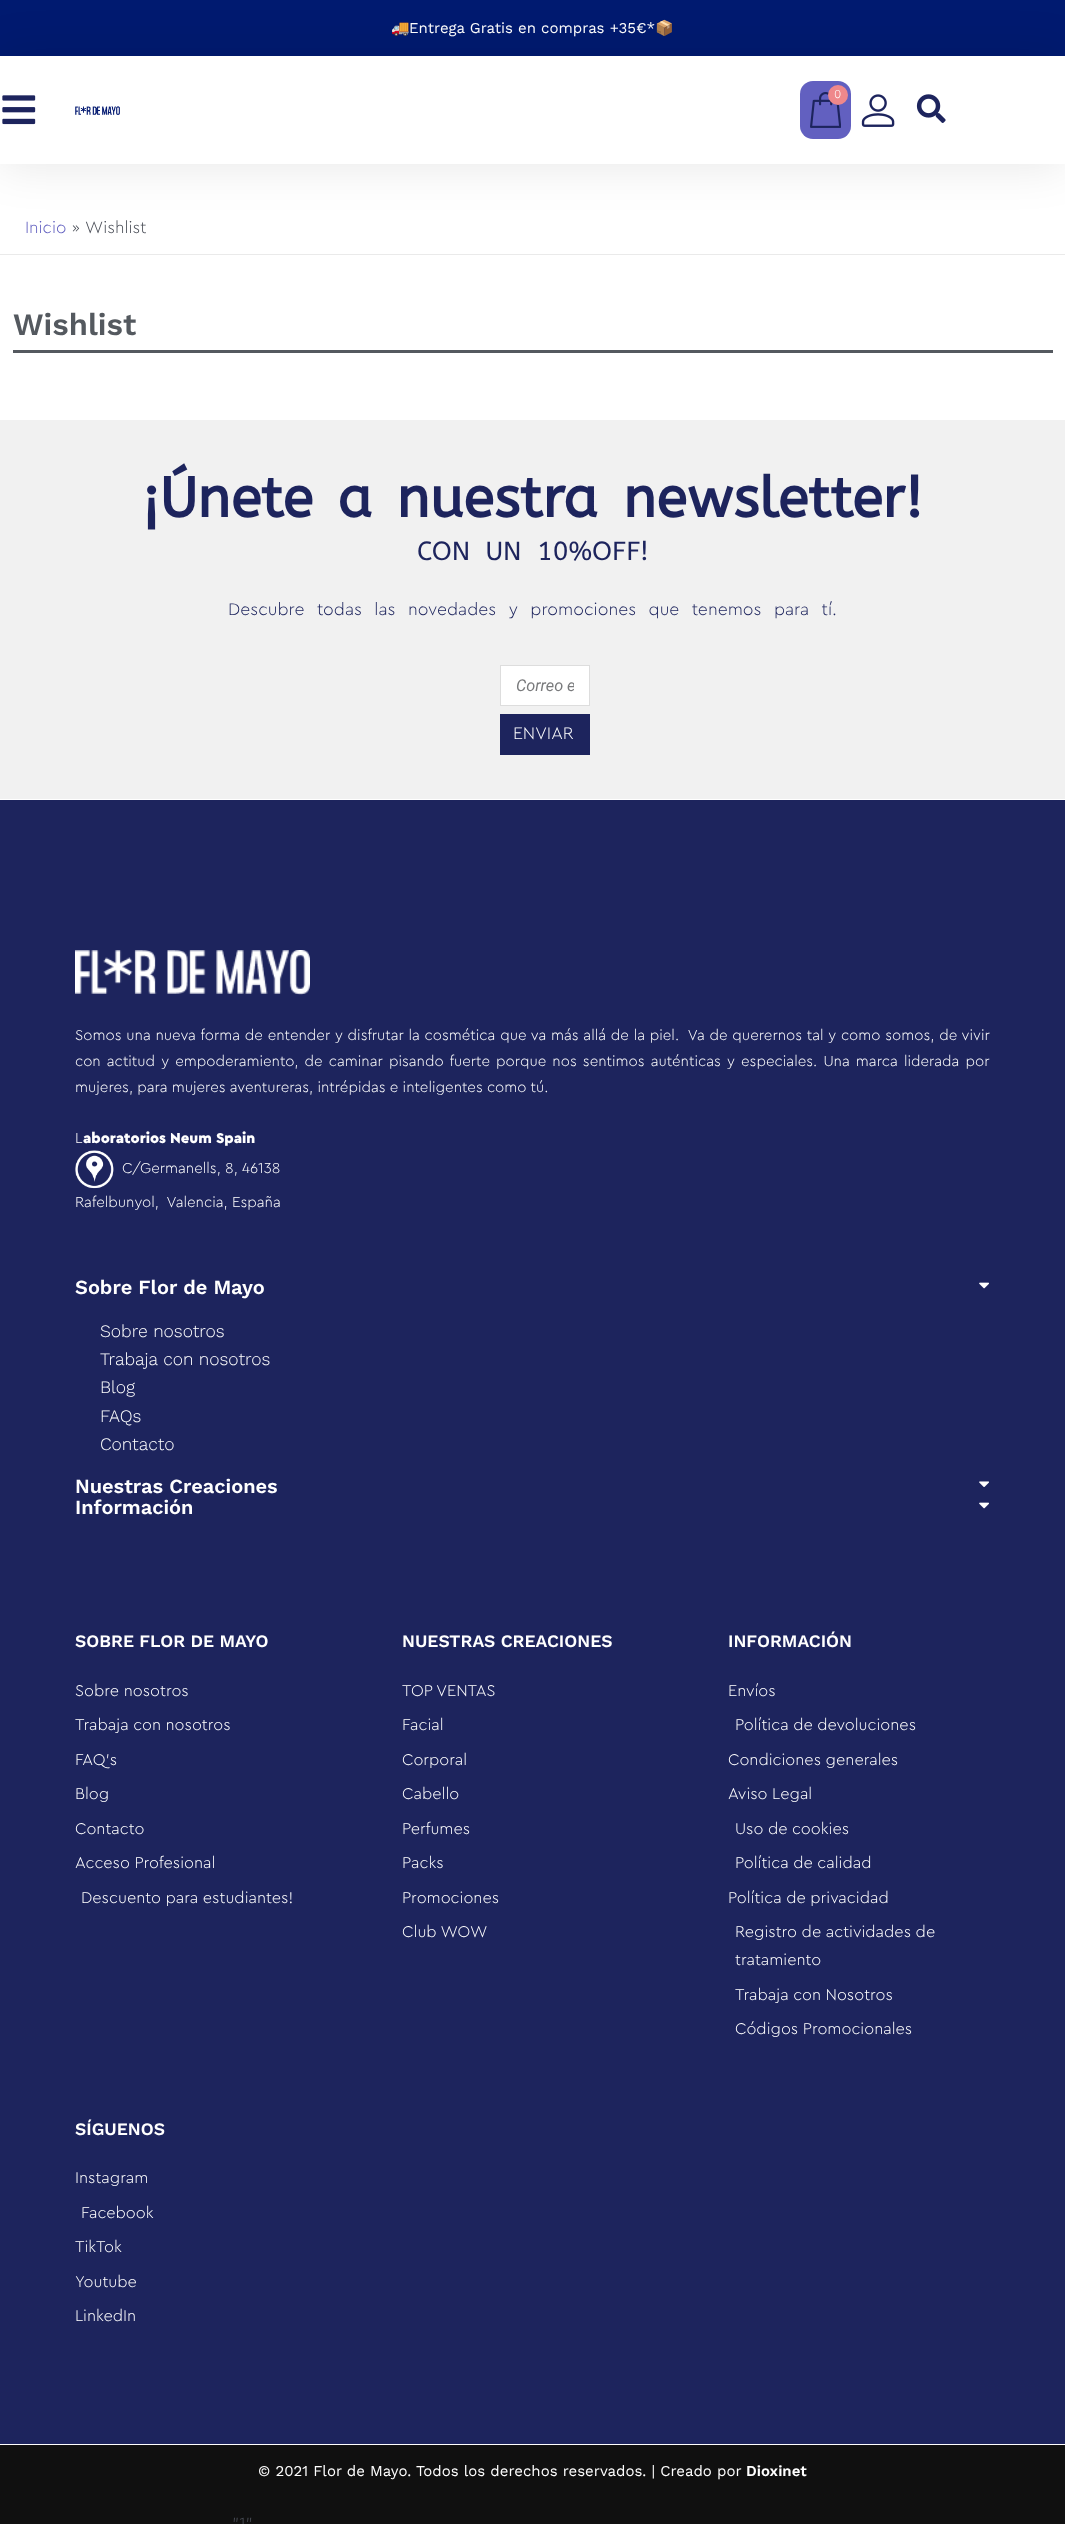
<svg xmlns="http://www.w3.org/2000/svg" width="1065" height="2524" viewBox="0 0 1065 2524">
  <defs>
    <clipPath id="clip1"><rect x="516" y="676" width="58" height="19"/></clipPath>
  </defs>
  <rect width="100%" height="100%" fill="rgb(255,255,255)"/>
  <rect x="0" y="0" width="1065" height="56" fill="rgb(0,26,112)"/>
  <text x="391" y="33" font-family="Noto Color Emoji" font-size="15" fill="rgb(255,255,255)">🚚</text>
  <text x="409" y="33" font-family="Work Sans" font-size="15" fill="rgb(255,255,255)">Entrega Gratis en compras +35€*</text>
  <text x="655" y="33" font-family="Noto Color Emoji" font-size="15" fill="rgb(255,255,255)">📦</text>
  <rect x="0" y="56" width="1065" height="108" fill="rgba(0,0,0,0.1)" filter="blur(24px)"/>
  <rect x="0" y="56" width="1065" height="108" fill="rgb(255,255,255)"/>
  <rect x="800" y="81" width="51" height="58" rx="13" fill="rgb(98,96,192)"/>
  <image x="810" y="92" width="31" height="36" href="pic1.png"/>
  <circle cx="838" cy="95" r="10" fill="rgb(239,136,139)"/>
  <text x="834" y="98" font-family="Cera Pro" font-size="12" font-weight="300" fill="rgb(255,255,255)">0</text>
  <image x="861" y="94" width="34" height="33" href="pic2.png"/>
  <image x="916" y="94" width="30" height="29" href="pic3.png"/>
  <image x="2" y="95" width="34" height="30" href="pic4.png"/>
  <image x="75" y="106" width="45" height="9" href="pic5.png"/>
  <rect x="0" y="254" width="1065" height="1" fill="rgb(234,234,234)"/>
  <text x="25" y="233" font-family="Cera Pro" font-size="17" font-weight="300" fill="rgb(98,96,192)">Inicio</text>
  <g font-family="Cera Pro" font-size="17" font-weight="300" fill="rgb(75,79,88)">
    <text x="72" y="233">»</text>
    <text x="85" y="233">Wishlist</text>
  </g>
  <text x="13" y="335" font-family="Work Sans" font-size="31" font-weight="600" fill="rgb(84,89,95)">Wishlist</text>
  <rect x="13" y="350" width="1040" height="3" fill="rgb(84,89,95)"/>
  <rect x="0" y="420" width="1065" height="379" fill="rgb(241,241,241)"/>
  <g font-family="ABeeZee" font-size="56.25" font-weight="bold" fill="rgb(29,36,93)">
    <text x="142" y="517" word-spacing="7.5">¡Únete a nuestra</text>
    <text x="623" y="517">newsletter!</text>
  </g>
  <text x="417" y="560" word-spacing="7.5" font-family="ABeeZee" font-size="26.25" fill="rgb(29,36,93)">CON UN 10%OFF!</text>
  <text x="228" y="615" word-spacing="7.5" font-family="Cera Pro" font-size="17.5" font-weight="300" fill="rgb(29,36,93)">Descubre todas las novedades y promociones que tenemos para tí.</text>
  <rect x="500.5" y="665.5" width="89" height="40" fill="rgb(255,255,255)" stroke="rgb(221,221,221)"/>
  <g clip-path="url(#clip1)">
    <text x="516" y="691" font-family="Roboto" font-size="16.25" font-style="italic" fill="rgb(121,122,124)">Correo e</text>
  </g>
  <rect x="500" y="714" width="90" height="41" fill="rgb(29,36,93)"/>
  <text x="513" y="739" font-family="Cera Pro" font-size="17.5" font-weight="300" fill="rgb(255,255,255)">ENVIAR</text>
  <rect x="0" y="800" width="1065" height="1644" fill="rgb(29,36,93)"/>
  <image x="75" y="950" width="235" height="45" href="pic6.png"/>
  <g font-family="Cera Pro" font-size="15" font-weight="300" fill="rgb(255,255,255)">
    <text xml:space="preserve"><tspan x="75" y="1040" word-spacing="0.55">Somos una nueva forma de entender y disfrutar la cosmética que va más allá de la piel.  Va de querernos tal y como somos, de vivir</tspan><tspan x="75" y="1066" word-spacing="1.9">con actitud y empoderamiento, de caminar pisando fuerte porque nos sentimos auténticas y especiales. Una marca liderada por</tspan><tspan x="75" y="1092">mujeres, para mujeres aventureras, intrépidas e inteligentes como tú.</tspan></text>
    <text x="75" y="1143">L</text>
  </g>
  <text x="83" y="1143" font-family="Cera Pro" font-size="15" font-weight="900" fill="rgb(255,255,255)">aboratorios Neum Spain</text>
  <image x="75" y="1150" width="39" height="39" href="pic7.png"/>
  <g font-family="Cera Pro" font-size="15" font-weight="300" fill="rgb(255,255,255)">
    <text x="122" y="1173">C/Germanells, 8, 46138</text>
    <text x="75" y="1207" xml:space="preserve">Rafelbunyol,  Valencia, España</text>
  </g>
  <text x="75" y="1294" font-family="Work Sans" font-size="20" font-weight="600" fill="rgb(255,255,255)">Sobre Flor de Mayo</text>
  <image x="979" y="1282" width="10" height="7" href="pic8.png"/>
  <g font-family="Work Sans" font-size="17.5" font-weight="300" fill="rgb(255,255,255)">
    <text>
      <tspan x="100" y="1337">Sobre nosotros</tspan>
      <tspan x="100" y="1365">Trabaja con nosotros</tspan>
      <tspan x="100" y="1393">Blog</tspan>
      <tspan x="100" y="1422">FAQs</tspan>
      <tspan x="100" y="1450">Contacto</tspan>
    </text>
  </g>
  <text x="75" y="1493" font-family="Work Sans" font-size="20" font-weight="600" fill="rgb(255,255,255)">Nuestras Creaciones</text>
  <image x="979" y="1481" width="10" height="6" href="pic9.png"/>
  <text x="75" y="1514" font-family="Work Sans" font-size="20" font-weight="600" fill="rgb(255,255,255)">Información</text>
  <image x="979" y="1502" width="10" height="7" href="pic8.png"/>
  <text x="75" y="1647" font-family="Work Sans" font-size="17.5" font-weight="600" fill="rgb(255,255,255)">SOBRE FLOR DE MAYO</text>
  <g font-family="Cera Pro" font-size="16.25" font-weight="300" fill="rgb(255,255,255)">
    <text x="75" y="1696">Sobre nosotros</text>
    <text x="75" y="1730">Trabaja con nosotros</text>
    <text x="75" y="1765">FAQ's</text>
    <text x="75" y="1799">Blog</text>
    <text x="75" y="1834">Contacto</text>
    <text x="75" y="1868">Acceso Profesional</text>
    <text x="81" y="1903">Descuento para estudiantes!</text>
  </g>
  <text x="402" y="1647" font-family="Work Sans" font-size="17.5" font-weight="600" fill="rgb(255,255,255)">NUESTRAS CREACIONES</text>
  <g font-family="Cera Pro" font-size="16.25" font-weight="300" fill="rgb(255,255,255)">
    <text x="402" y="1696">TOP VENTAS</text>
    <text x="402" y="1730">Facial</text>
    <text x="402" y="1765">Corporal</text>
    <text x="402" y="1799">Cabello</text>
    <text x="402" y="1834">Perfumes</text>
    <text x="402" y="1868">Packs</text>
    <text x="402" y="1903">Promociones</text>
    <text x="402" y="1937">Club WOW</text>
  </g>
  <text x="728" y="1647" font-family="Work Sans" font-size="17.5" font-weight="600" fill="rgb(255,255,255)">INFORMACIÓN</text>
  <g font-family="Cera Pro" font-size="16.25" font-weight="300" fill="rgb(255,255,255)">
    <text x="728" y="1696">Envíos</text>
    <text x="735" y="1730">Política de devoluciones</text>
    <text x="728" y="1765">Condiciones generales</text>
    <text x="728" y="1799">Aviso Legal</text>
    <text x="735" y="1834">Uso de cookies</text>
    <text x="735" y="1868">Política de calidad</text>
    <text x="728" y="1903">Política de privacidad</text>
    <text>
      <tspan x="735" y="1937">Registro de actividades de</tspan>
      <tspan x="735" y="1965">tratamiento</tspan>
    </text>
    <text x="735" y="2000">Trabaja con Nosotros</text>
    <text x="735" y="2034">Códigos Promocionales</text>
  </g>
  <text x="75" y="2135" font-family="Work Sans" font-size="17.5" font-weight="600" fill="rgb(255,255,255)">SÍGUENOS</text>
  <g font-family="Cera Pro" font-size="16.25" font-weight="300" fill="rgb(255,255,255)">
    <text x="75" y="2183">Instagram</text>
    <text x="81" y="2218">Facebook</text>
    <text x="75" y="2252">TikTok</text>
    <text x="75" y="2287">Youtube</text>
    <text x="75" y="2321">LinkedIn</text>
  </g>
  <rect x="0" y="2445" width="1065" height="79" fill="rgb(16,16,16)"/>
  <text x="258" y="2476" font-family="Work Sans" font-size="15" fill="rgb(255,255,255)">© 2021 Flor de Mayo. Todos los derechos reservados. | Creado por</text>
  <text x="746" y="2476" font-family="Work Sans" font-size="15" font-weight="600" fill="rgb(255,255,255)">Dioxinet</text>
  <text x="232" y="2529" font-family="Cera Pro" font-size="17" font-weight="300" fill="rgb(75,79,88)">"1"</text>
</svg>
